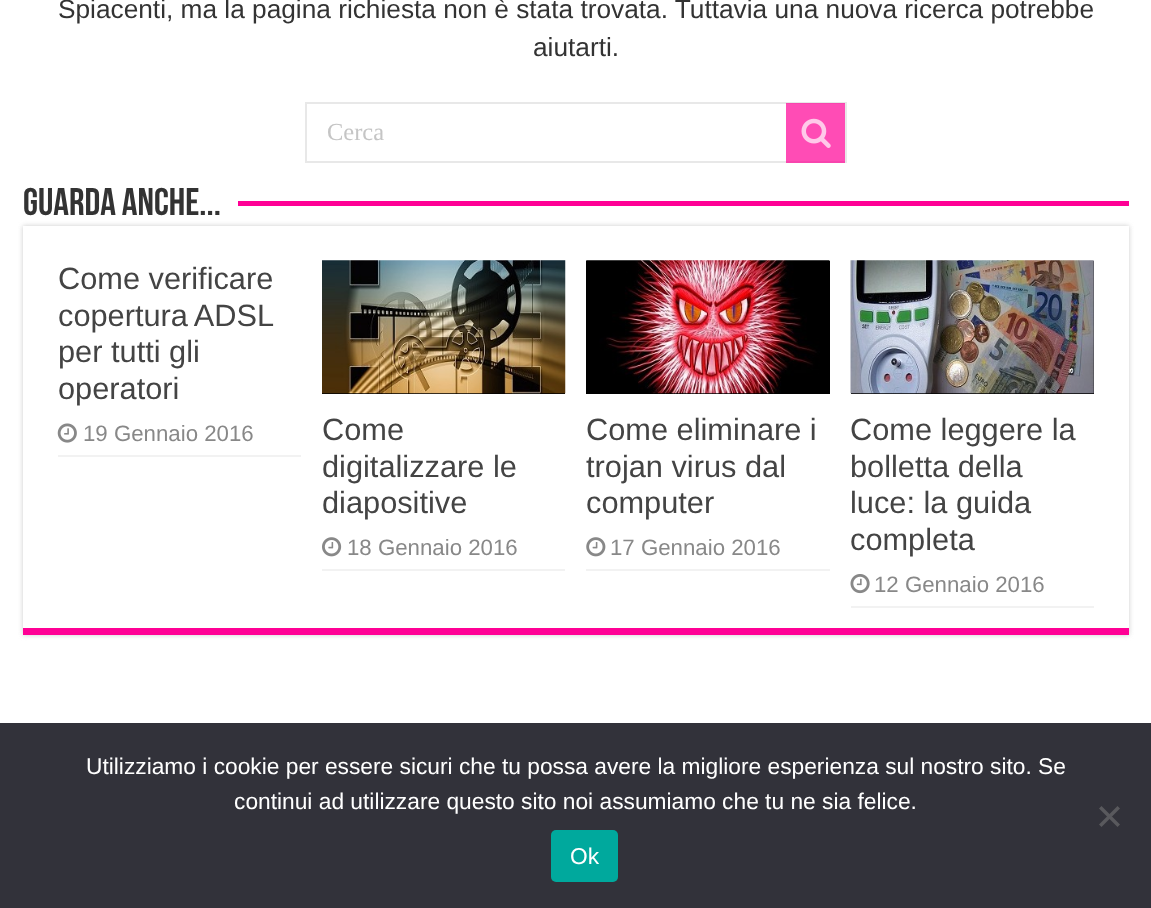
<svg xmlns="http://www.w3.org/2000/svg" width="1151" height="908" viewBox="0 0 1151 908">
  <rect width="100%" height="100%" fill="rgb(255,255,255)"/>
  <g font-family="Liberation Sans" font-size="26.25" fill="rgb(51,51,51)">
    <text x="58" y="18">Spiacenti, ma la pagina richiesta non è stata trovata. Tuttavia una nuova ricerca potrebbe</text>
    <text x="533" y="56">aiutarti.</text>
  </g>
  <rect x="306" y="103" width="540" height="59" fill="none" stroke="rgb(232,232,232)" stroke-width="2"/>
  <text x="327" y="140" font-family="Liberation Serif" font-size="24.5" fill="rgb(197,197,197)">Cerca</text>
  <rect x="786" y="103" width="59" height="60" fill="rgba(255,0,149,0.7)"/>
  <image x="801" y="118" width="30" height="30" href="pic1.png"/>
  <text x="23" y="215" font-family="Bebas Neue" font-size="38.5" font-weight="bold" fill="rgb(51,51,51)">Guarda anche...</text>
  <rect x="238" y="201" width="891" height="5" fill="rgb(255,0,149)"/>
  <rect x="23" y="226" width="1106" height="409" fill="rgb(202,202,202)" filter="blur(2.5px)"/>
  <rect x="23" y="226" width="1106" height="402" fill="rgb(255,255,255)"/>
  <rect x="23" y="628" width="1106" height="7" fill="rgb(255,0,149)"/>
  <g font-family="Liberation Sans" font-size="30.75" fill="rgb(68,68,68)">
    <text>
      <tspan x="58" y="289">Come verificare</tspan>
      <tspan x="58" y="326" word-spacing="-1">copertura ADSL</tspan>
      <tspan x="58" y="362">per tutti gli</tspan>
      <tspan x="58" y="399">operatori</tspan>
    </text>
  </g>
  <rect x="58" y="455" width="243" height="2" fill="rgb(242,242,242)"/>
  <image x="57" y="423" width="20" height="20" href="pic2.png"/>
  <text x="83" y="441" font-family="Liberation Sans" font-size="22.25" fill="rgb(136,136,136)">19 Gennaio 2016</text>
  <rect x="322" y="393" width="243" height="1" fill="rgb(0,0,0)"/>
  <image x="322" y="260" width="244" height="134" href="pic3.png"/>
  <g font-family="Liberation Sans" font-size="30.75" fill="rgb(68,68,68)">
    <text>
      <tspan x="322" y="440">Come</tspan>
      <tspan x="322" y="477">digitalizzare le</tspan>
      <tspan x="322" y="513">diapositive</tspan>
    </text>
  </g>
  <rect x="322" y="569" width="243" height="2" fill="rgb(242,242,242)"/>
  <image x="322" y="537" width="20" height="20" href="pic4.png"/>
  <text x="347" y="555" font-family="Liberation Sans" font-size="22.25" fill="rgb(136,136,136)">18 Gennaio 2016</text>
  <rect x="586" y="261" width="244" height="133" fill="rgb(0,0,0)"/>
  <image x="586" y="260" width="244" height="134" href="pic5.png"/>
  <g font-family="Liberation Sans" font-size="30.75" fill="rgb(68,68,68)">
    <text>
      <tspan x="586" y="440">Come eliminare i</tspan>
      <tspan x="586" y="477">trojan virus dal</tspan>
      <tspan x="586" y="513">computer</tspan>
    </text>
  </g>
  <rect x="586" y="569" width="244" height="2" fill="rgb(242,242,242)"/>
  <image x="586" y="537" width="20" height="20" href="pic6.png"/>
  <text x="610" y="555" font-family="Liberation Sans" font-size="22.25" fill="rgb(136,136,136)">17 Gennaio 2016</text>
  <rect x="851" y="261" width="243" height="133" fill="rgb(0,0,0)"/>
  <image x="850" y="260" width="244" height="134" href="pic7.png"/>
  <g font-family="Liberation Sans" font-size="30.75" fill="rgb(68,68,68)">
    <text>
      <tspan x="850" y="440">Come leggere la</tspan>
      <tspan x="850" y="477">bolletta della</tspan>
      <tspan x="850" y="513">luce: la guida</tspan>
      <tspan x="850" y="550">completa</tspan>
    </text>
  </g>
  <rect x="851" y="606" width="243" height="2" fill="rgb(242,242,242)"/>
  <image x="850" y="574" width="20" height="20" href="pic8.png"/>
  <text x="874" y="592" font-family="Liberation Sans" font-size="22.25" fill="rgb(136,136,136)">12 Gennaio 2016</text>
  <rect x="0" y="723" width="1151" height="185" fill="rgb(50,50,58)"/>
  <g font-family="Liberation Sans" font-size="22.75" fill="rgb(255,255,255)">
    <text x="86" y="774">Utilizziamo i cookie per essere sicuri che tu possa avere la migliore esperienza sul nostro sito. Se</text>
    <text x="234" y="809">continui ad utilizzare questo sito noi assumiamo che tu ne sia felice.</text>
  </g>
  <path d="M1117.5 806L1120 808.5L1101.5 827L1099 824.5Z" fill="rgb(89,89,93)"/>
  <path d="M1099 808.5L1101.5 806L1120 824.5L1117.5 827Z" fill="rgb(89,89,93)"/>
  <rect x="551" y="830" width="67" height="52" rx="5" fill="rgb(0,169,157)"/>
  <text x="570" y="864" font-family="Liberation Sans" font-size="22.75" fill="rgb(255,255,255)">Ok</text>
</svg>
